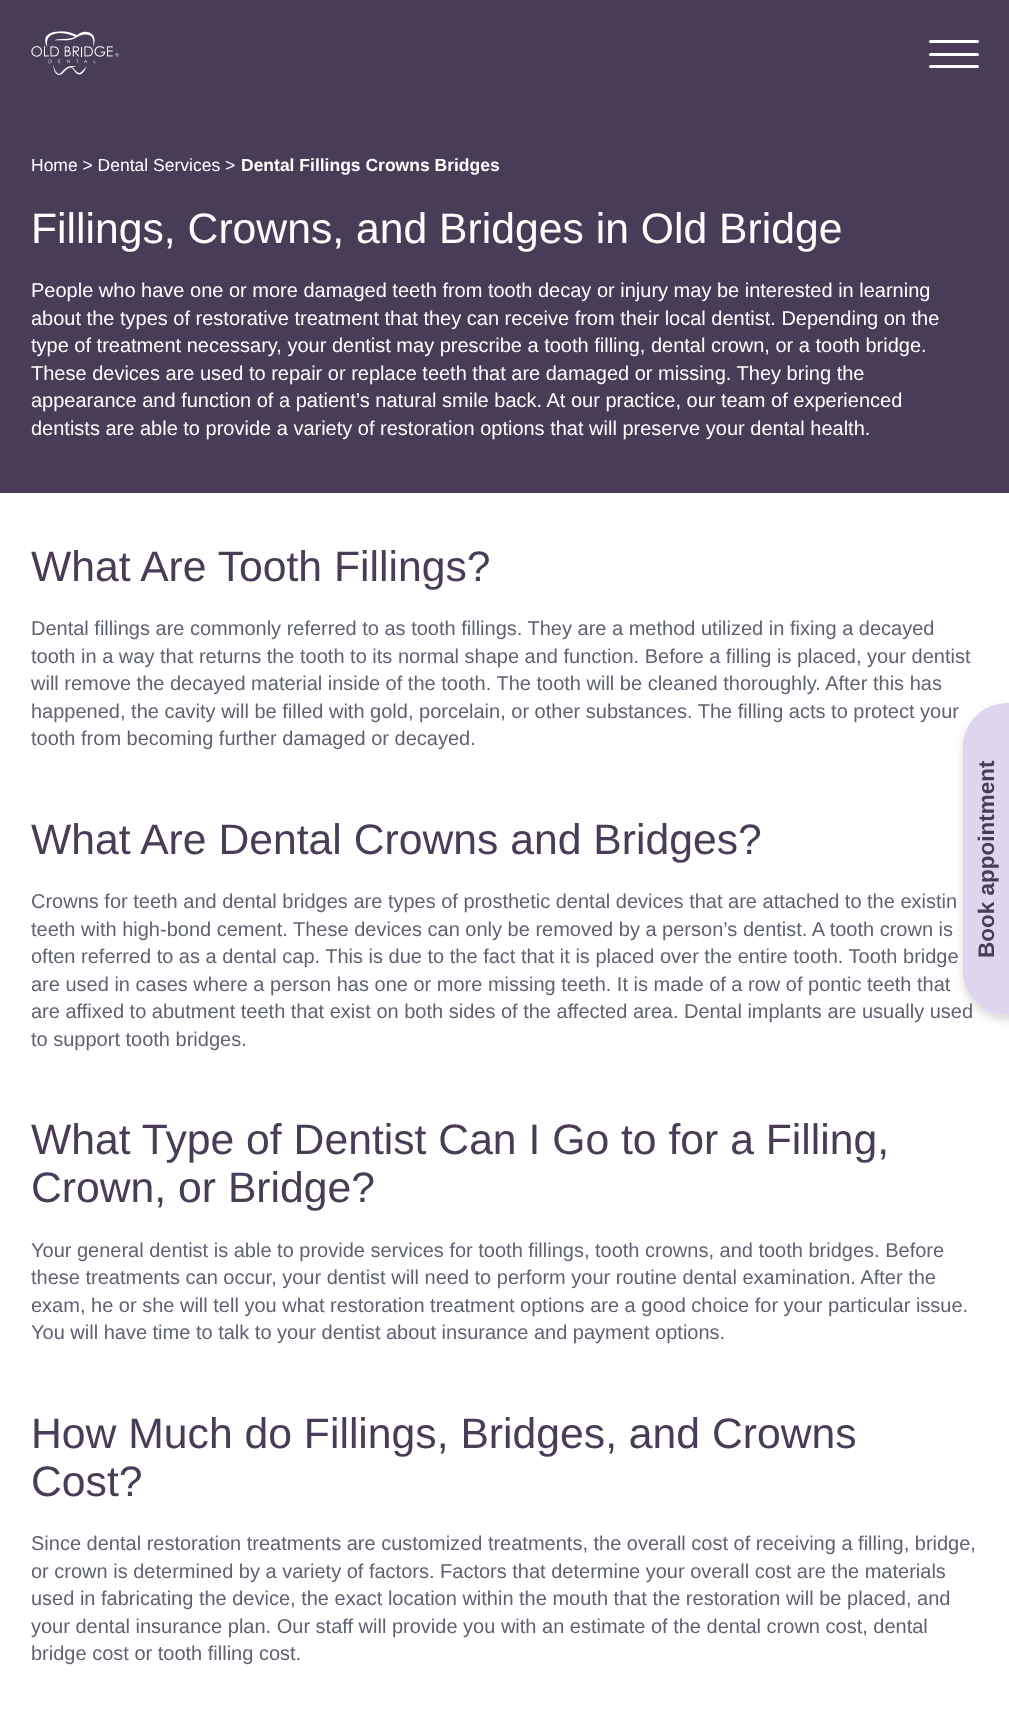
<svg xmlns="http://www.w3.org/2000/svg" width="1009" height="1717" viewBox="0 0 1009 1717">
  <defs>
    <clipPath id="clip1"><path d="M1007 703H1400V1015H1007C982.5 1015 963 995.5 963 971V747C963 722.5 982.5 703 1007 703Z"/></clipPath>
  </defs>
  <rect width="100%" height="100%" fill="rgb(255,255,255)"/>
  <rect x="0" y="0" width="1009" height="493" fill="rgb(73,60,87)"/>
  <text x="31" y="171" font-family="Liberation Sans" font-size="17.5" fill="rgb(255,255,255)">Home &gt; Dental Services &gt;</text>
  <text x="241" y="171" font-family="Liberation Sans" font-size="17.5" font-weight="bold" fill="rgb(255,255,255)">Dental Fillings Crowns Bridges</text>
  <text x="31" y="243" font-family="Liberation Sans" font-size="42.7" fill="rgb(255,255,255)">Fillings, Crowns, and Bridges in Old Bridge</text>
  <g font-family="Liberation Sans" font-size="20" fill="rgb(255,255,255)">
    <text>
      <tspan x="31" y="297">People who have one or more damaged teeth from tooth decay or injury may be interested in learning</tspan>
      <tspan x="31" y="325">about the types of restorative treatment that they can receive from their local dentist. Depending on the</tspan>
      <tspan x="31" y="352">type of treatment necessary, your dentist may prescribe a tooth filling, dental crown, or a tooth bridge.</tspan>
      <tspan x="31" y="380">These devices are used to repair or replace teeth that are damaged or missing. They bring the</tspan>
      <tspan x="31" y="407">appearance and function of a patient’s natural smile back. At our practice, our team of experienced</tspan>
      <tspan x="31" y="435">dentists are able to provide a variety of restoration options that will preserve your dental health.</tspan>
    </text>
  </g>
  <text x="31" y="581" font-family="Liberation Sans" font-size="42.7" fill="rgb(73,60,87)">What Are Tooth Fillings?</text>
  <g font-family="Liberation Sans" font-size="20" fill="rgb(94,98,113)">
    <text>
      <tspan x="31" y="635">Dental fillings are commonly referred to as tooth fillings. They are a method utilized in fixing a decayed</tspan>
      <tspan x="31" y="663">tooth in a way that returns the tooth to its normal shape and function. Before a filling is placed, your dentist</tspan>
      <tspan x="31" y="690">will remove the decayed material inside of the tooth. The tooth will be cleaned thoroughly. After this has</tspan>
      <tspan x="31" y="718">happened, the cavity will be filled with gold, porcelain, or other substances. The filling acts to protect your</tspan>
      <tspan x="31" y="745">tooth from becoming further damaged or decayed.</tspan>
    </text>
  </g>
  <text x="31" y="854" font-family="Liberation Sans" font-size="42.7" fill="rgb(73,60,87)">What Are Dental Crowns and Bridges?</text>
  <g font-family="Liberation Sans" font-size="20" fill="rgb(94,98,113)">
    <text>
      <tspan x="31" y="908">Crowns for teeth and dental bridges are types of prosthetic dental devices that are attached to the existin</tspan>
      <tspan x="31" y="936">teeth with high-bond cement. These devices can only be removed by a person’s dentist. A tooth crown is</tspan>
      <tspan x="31" y="963">often referred to as a dental cap. This is due to the fact that it is placed over the entire tooth. Tooth bridge</tspan>
      <tspan x="31" y="991">are used in cases where a person has one or more missing teeth. It is made of a row of pontic teeth that</tspan>
      <tspan x="31" y="1018">are affixed to abutment teeth that exist on both sides of the affected area. Dental implants are usually used</tspan>
      <tspan x="31" y="1046">to support tooth bridges.</tspan>
    </text>
  </g>
  <g font-family="Liberation Sans" font-size="42.7" fill="rgb(73,60,87)">
    <text>
      <tspan x="31" y="1154">What Type of Dentist Can I Go to for a Filling,</tspan>
      <tspan x="31" y="1202">Crown, or Bridge?</tspan>
    </text>
  </g>
  <g font-family="Liberation Sans" font-size="20" fill="rgb(94,98,113)">
    <text>
      <tspan x="31" y="1257">Your general dentist is able to provide services for tooth fillings, tooth crowns, and tooth bridges. Before</tspan>
      <tspan x="31" y="1284">these treatments can occur, your dentist will need to perform your routine dental examination. After the</tspan>
      <tspan x="31" y="1312">exam, he or she will tell you what restoration treatment options are a good choice for your particular issue.</tspan>
      <tspan x="31" y="1339">You will have time to talk to your dentist about insurance and payment options.</tspan>
    </text>
  </g>
  <g font-family="Liberation Sans" font-size="42.7" fill="rgb(73,60,87)">
    <text>
      <tspan x="31" y="1448">How Much do Fillings, Bridges, and Crowns</tspan>
      <tspan x="31" y="1496">Cost?</tspan>
    </text>
  </g>
  <g font-family="Liberation Sans" font-size="20" fill="rgb(94,98,113)">
    <text>
      <tspan x="31" y="1550">Since dental restoration treatments are customized treatments, the overall cost of receiving a filling, bridge,</tspan>
      <tspan x="31" y="1578">or crown is determined by a variety of factors. Factors that determine your overall cost are the materials</tspan>
      <tspan x="31" y="1605">used in fabricating the device, the exact location within the mouth that the restoration will be placed, and</tspan>
      <tspan x="31" y="1633">your dental insurance plan. Our staff will provide you with an estimate of the dental crown cost, dental</tspan>
      <tspan x="31" y="1660">bridge cost or tooth filling cost.</tspan>
    </text>
  </g>
  <image x="31" y="31" width="88" height="44" href="pic1.png"/>
  <rect x="929" y="40" width="50" height="3" rx="1.5" fill="rgb(255,255,255)"/>
  <rect x="929" y="53" width="50" height="3" rx="1.5" fill="rgb(255,255,255)"/>
  <rect x="929" y="65" width="50" height="3" rx="1.5" fill="rgb(255,255,255)"/>
  <rect x="963" y="708" width="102" height="312" rx="44" fill="rgba(0,0,0,0.15)" filter="blur(4px)"/>
  <path d="M1007 703H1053V1015H1007C982.5 1015 963 995.5 963 971V747C963 722.5 982.5 703 1007 703Z" fill="rgb(255,255,255)"/>
  <g clip-path="url(#clip1)">
    <path d="M1007 703H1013V983H963V747C963 722.5 982.5 703 1007 703Z" fill="rgb(224,213,239)"/>
    <path d="M963 735H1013V1015H1007C982.5 1015 963 995.5 963 971Z" fill="rgb(224,213,239)"/>
  </g>
  <text x="994" y="958" transform="rotate(-90 994 958)" font-family="Liberation Sans" font-size="22.5" font-weight="bold" fill="rgb(73,60,87)">Book appointment</text>
</svg>
